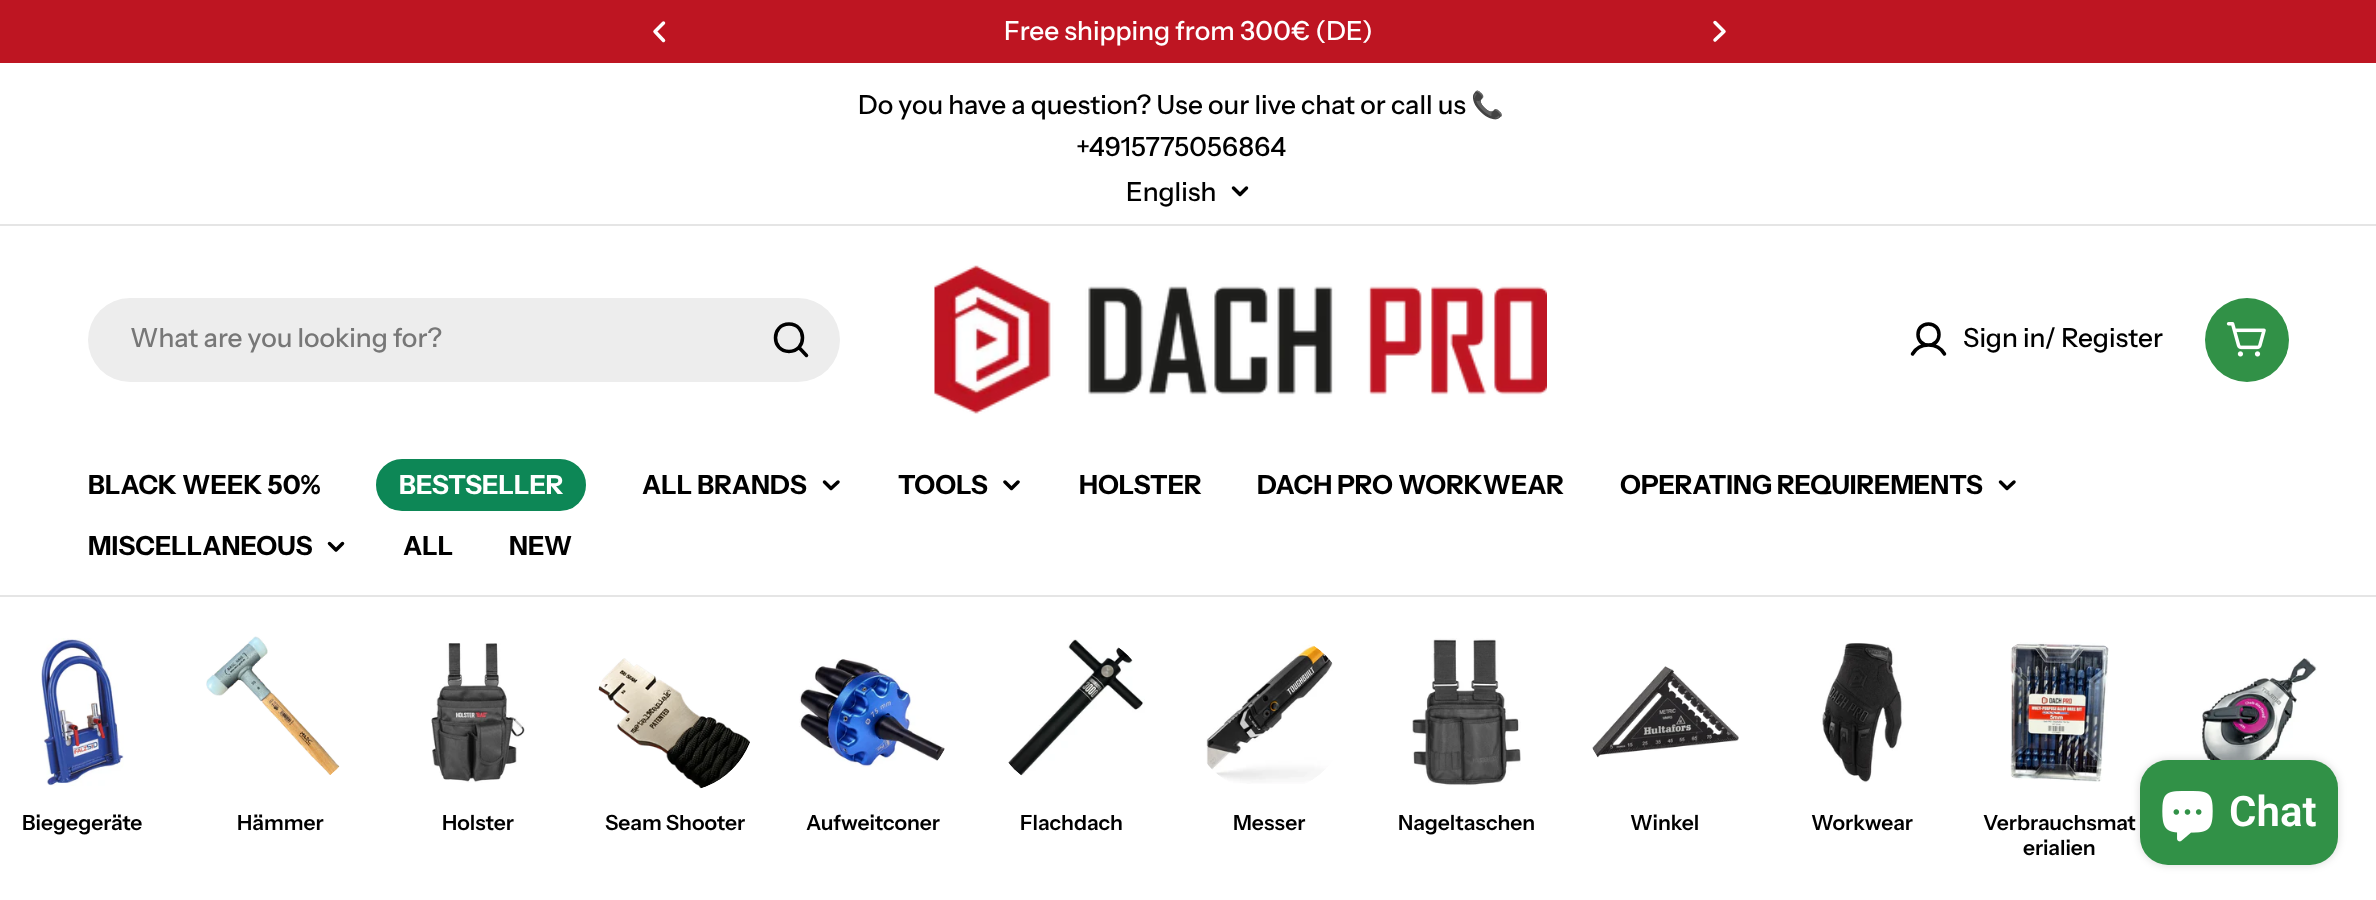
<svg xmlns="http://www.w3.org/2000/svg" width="2376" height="900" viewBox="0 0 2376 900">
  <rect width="100%" height="100%" fill="rgb(255,255,255)"/>
  <rect x="0" y="0" width="2376" height="63" fill="rgb(190,21,34)"/>
  <path d="M663.5 40.5L655 31.5L663.5 23" fill="none" stroke="rgb(255,255,255)" stroke-width="3.5" stroke-linecap="round" stroke-linejoin="round"/>
  <path d="M1715 22.5L1724 31.5L1715 40" fill="none" stroke="rgb(255,255,255)" stroke-width="3.5" stroke-linecap="round" stroke-linejoin="round"/>
  <text x="1004" y="40" font-family="Instrument Sans" font-size="26.25" font-weight="500" fill="rgb(255,255,255)">Free shipping from 300€ (DE)</text>
  <rect x="0" y="224" width="2376" height="2" fill="rgb(229,229,229)"/>
  <text x="858" y="114" font-family="Instrument Sans" font-size="26.25" font-weight="500" fill="rgb(0,0,0)">Do you have a question? Use our live chat or call us</text>
  <text x="1471" y="114" font-family="Noto Color Emoji" font-size="26.25" fill="rgb(0,0,0)">📞</text>
  <g font-family="Instrument Sans" font-size="26.25" font-weight="500" fill="rgb(0,0,0)">
    <text x="1076" y="156">+4915775056864</text>
    <text x="1126" y="201">English</text>
  </g>
  <path d="M1246.5 188L1240 194.5L1233.5 188" fill="none" stroke="rgb(0,0,0)" stroke-width="3.5" stroke-linecap="round" stroke-linejoin="round"/>
  <rect x="88" y="298" width="752" height="84" rx="42" fill="rgb(237,237,237)"/>
  <text x="130" y="347" font-family="Instrument Sans" font-size="26.25" font-weight="500" fill="rgb(119,119,119)">What are you looking for?</text>
  <path d="M789 351.5C807 351.5 807 324 789 324C771 324 771 351.5 789 351.5ZM799 347.5L806.5 355.5" fill="none" stroke="rgb(0,0,0)" stroke-width="3.5" stroke-linecap="round" stroke-linejoin="round"/>
  <image x="934" y="265" width="613" height="149" href="pic1.png"/>
  <path d="M1928.5 345C1942.5 345 1942.5 324 1928.5 324C1914.5 324 1914.5 345 1928.5 345ZM1912.5 354C1919.5 342 1937.5 342 1944.5 354" fill="none" stroke="rgb(0,0,0)" stroke-width="3.5" stroke-linecap="round" stroke-linejoin="round"/>
  <text x="1963" y="347" font-family="Instrument Sans" font-size="26.25" font-weight="500" fill="rgb(0,0,0)">Sign in/ Register</text>
  <circle cx="2247" cy="340" r="42" fill="rgb(49,145,71)"/>
  <image x="2226" y="322" width="40" height="35" href="pic2.png"/>
  <rect x="0" y="595" width="2376" height="2" fill="rgb(229,229,229)"/>
  <text x="88" y="494" font-family="Instrument Sans" font-size="26.25" font-weight="bold" fill="rgb(0,0,0)">BLACK WEEK 50%</text>
  <rect x="377" y="460" width="208" height="50" rx="25" fill="rgb(13,135,86)" stroke="rgb(13,135,86)" stroke-width="2"/>
  <text x="399" y="494" font-family="Instrument Sans" font-size="26.25" font-weight="bold" fill="rgb(255,255,255)">BESTSELLER</text>
  <text x="642" y="494" font-family="Instrument Sans" font-size="26.25" font-weight="bold" fill="rgb(0,0,0)">ALL BRANDS</text>
  <path d="M838 482L831 488.5L824.5 482" fill="none" stroke="rgb(0,0,0)" stroke-width="3.5" stroke-linecap="round" stroke-linejoin="round"/>
  <text x="898" y="494" font-family="Instrument Sans" font-size="26.25" font-weight="bold" fill="rgb(0,0,0)">TOOLS</text>
  <path d="M1018 482L1011.5 488.5L1005 482" fill="none" stroke="rgb(0,0,0)" stroke-width="3.5" stroke-linecap="round" stroke-linejoin="round"/>
  <g font-family="Instrument Sans" font-size="26.25" font-weight="bold" fill="rgb(0,0,0)">
    <text x="1079" y="494">HOLSTER</text>
    <text x="1257" y="494">DACH PRO WORKWEAR</text>
    <text x="1620" y="494">OPERATING REQUIREMENTS</text>
  </g>
  <path d="M2014 482L2007 488.5L2000.5 482" fill="none" stroke="rgb(0,0,0)" stroke-width="3.5" stroke-linecap="round" stroke-linejoin="round"/>
  <text x="88" y="555" font-family="Instrument Sans" font-size="26.25" font-weight="bold" fill="rgb(0,0,0)">MISCELLANEOUS</text>
  <path d="M342.5 543.5L336 550L329.5 543.5" fill="none" stroke="rgb(0,0,0)" stroke-width="3.5" stroke-linecap="round" stroke-linejoin="round"/>
  <g font-family="Instrument Sans" font-size="26.25" font-weight="bold" fill="rgb(0,0,0)">
    <text x="403" y="555">ALL</text>
    <text x="509" y="555">NEW</text>
  </g>
  <image x="2200" y="658" width="117" height="103" href="pic3.png"/>
  <image x="40" y="638" width="84" height="148" href="pic4.png"/>
  <text x="22" y="830" font-family="Instrument Sans" font-size="21" font-weight="600" fill="rgb(0,0,0)">Biegegeräte</text>
  <image x="206" y="636" width="134" height="139" href="pic5.png"/>
  <text x="237" y="830" font-family="Instrument Sans" font-size="21" font-weight="600" fill="rgb(0,0,0)">Hämmer</text>
  <image x="431" y="643" width="94" height="140" href="pic6.png"/>
  <text x="442" y="830" font-family="Instrument Sans" font-size="21" font-weight="600" fill="rgb(0,0,0)">Holster</text>
  <image x="598" y="658" width="152" height="131" href="pic7.png"/>
  <text x="605" y="830" font-family="Instrument Sans" font-size="21" font-weight="600" fill="rgb(0,0,0)">Seam Shooter</text>
  <image x="799" y="658" width="146" height="109" href="pic8.png"/>
  <text x="806" y="830" font-family="Instrument Sans" font-size="21" font-weight="600" fill="rgb(0,0,0)">Aufweitconer</text>
  <image x="1008" y="639" width="137" height="137" href="pic9.png"/>
  <text x="1020" y="830" font-family="Instrument Sans" font-size="21" font-weight="600" fill="rgb(0,0,0)">Flachdach</text>
  <image x="1206" y="645" width="127" height="139" href="pic10.png"/>
  <text x="1233" y="830" font-family="Instrument Sans" font-size="21" font-weight="600" fill="rgb(0,0,0)">Messer</text>
  <image x="1412" y="638" width="109" height="148" href="pic11.png"/>
  <text x="1398" y="830" font-family="Instrument Sans" font-size="21" font-weight="600" fill="rgb(0,0,0)">Nageltaschen</text>
  <image x="1592" y="666" width="147" height="92" href="pic12.png"/>
  <text x="1630" y="830" font-family="Instrument Sans" font-size="21" font-weight="600" fill="rgb(0,0,0)">Winkel</text>
  <image x="1820" y="643" width="84" height="140" href="pic13.png"/>
  <text x="1811" y="830" font-family="Instrument Sans" font-size="21" font-weight="600" fill="rgb(0,0,0)">Workwear</text>
  <image x="2010" y="642" width="99" height="140" href="pic14.png"/>
  <g font-family="Instrument Sans" font-size="21" font-weight="600" fill="rgb(0,0,0)">
    <text x="1983" y="830">Verbrauchsmat</text>
    <text x="2023" y="855">erialien</text>
  </g>
  <rect x="2140" y="760" width="198" height="105" rx="28" fill="rgba(0,0,0,0.15)" filter="blur(4.5px)"/>
  <rect x="2140" y="760" width="198" height="105" rx="28" fill="rgb(49,145,71)"/>
  <image x="2162" y="791" width="51" height="51" href="pic15.png"/>
  <text x="2229" y="826" font-family="Roboto" font-size="42" font-weight="600" fill="rgb(255,255,255)">Chat</text>
</svg>
